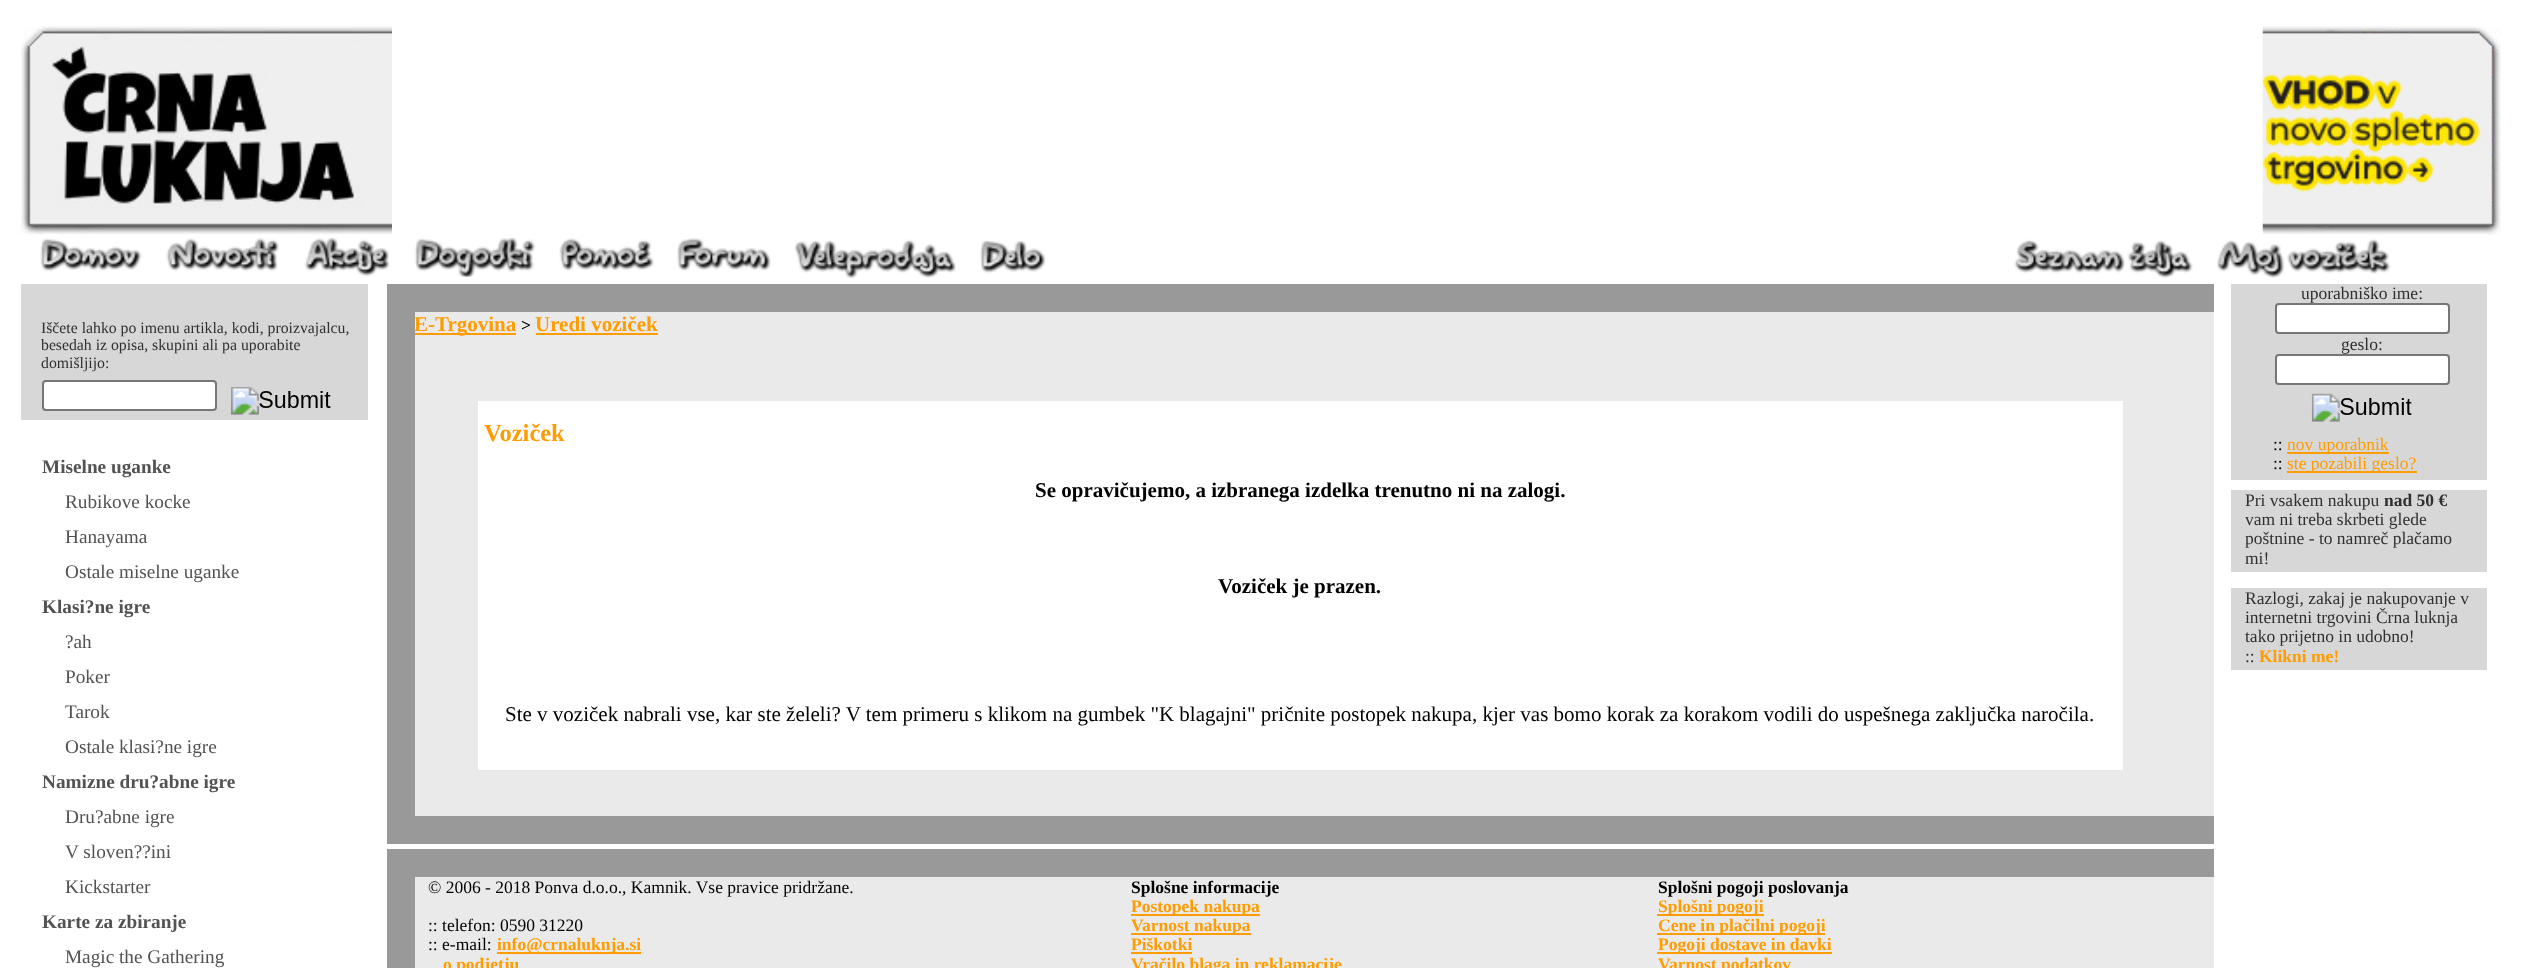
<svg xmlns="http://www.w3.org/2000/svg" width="2521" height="968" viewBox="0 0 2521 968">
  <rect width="100%" height="100%" fill="rgb(255,255,255)"/>
  <image x="20" y="26" width="372" height="209" href="pic1.png"/>
  <image x="2262" y="26" width="239" height="209" href="pic2.png"/>
  <image x="40" y="238" width="102" height="34" href="pic3.png"/>
  <image x="166" y="238" width="113" height="34" href="pic4.png"/>
  <image x="304" y="238" width="86" height="39" href="pic5.png"/>
  <image x="414" y="238" width="122" height="39" href="pic6.png"/>
  <image x="559" y="238" width="95" height="33" href="pic7.png"/>
  <image x="677" y="238" width="94" height="34" href="pic8.png"/>
  <image x="794" y="239" width="162" height="40" href="pic9.png"/>
  <image x="980" y="240" width="66" height="34" href="pic10.png"/>
  <image x="2014" y="239" width="179" height="40" href="pic11.png"/>
  <image x="2217" y="239" width="174" height="39" href="pic12.png"/>
  <rect x="21" y="284" width="347" height="136" fill="rgb(215,215,215)"/>
  <g font-family="Liberation Serif" font-size="15.75" fill="rgb(48,48,48)">
    <text>
      <tspan x="41" y="333">Iščete lahko po imenu artikla, kodi, proizvajalcu,</tspan>
      <tspan x="41" y="350">besedah iz opisa, skupini ali pa uporabite</tspan>
      <tspan x="41" y="368">domišljijo:</tspan>
    </text>
  </g>
  <rect x="43" y="381" width="173" height="29" rx="3" fill="rgb(255,255,255)" stroke="rgb(118,118,118)" stroke-width="2"/>
  <image x="231" y="387" width="100" height="28" href="pic13.png"/>
  <text x="42" y="473" font-family="Liberation Serif" font-size="19.25" font-weight="bold" fill="rgb(82,82,82)">Miselne uganke</text>
  <g font-family="Liberation Serif" font-size="19.25" fill="rgb(82,82,82)">
    <text>
      <tspan x="65" y="508">Rubikove kocke</tspan>
      <tspan x="65" y="543">Hanayama</tspan>
      <tspan x="65" y="578">Ostale miselne uganke</tspan>
    </text>
  </g>
  <text x="42" y="613" font-family="Liberation Serif" font-size="19.25" font-weight="bold" fill="rgb(82,82,82)">Klasi?ne igre</text>
  <g font-family="Liberation Serif" font-size="19.25" fill="rgb(82,82,82)">
    <text>
      <tspan x="65" y="648">?ah</tspan>
      <tspan x="65" y="683">Poker</tspan>
      <tspan x="65" y="718">Tarok</tspan>
      <tspan x="65" y="753">Ostale klasi?ne igre</tspan>
    </text>
  </g>
  <text x="42" y="788" font-family="Liberation Serif" font-size="19.25" font-weight="bold" fill="rgb(82,82,82)">Namizne dru?abne igre</text>
  <g font-family="Liberation Serif" font-size="19.25" fill="rgb(82,82,82)">
    <text>
      <tspan x="65" y="823">Dru?abne igre</tspan>
      <tspan x="65" y="858">V sloven??ini</tspan>
      <tspan x="65" y="893">Kickstarter</tspan>
    </text>
  </g>
  <text x="42" y="928" font-family="Liberation Serif" font-size="19.25" font-weight="bold" fill="rgb(82,82,82)">Karte za zbiranje</text>
  <text x="65" y="963" font-family="Liberation Serif" font-size="19.25" fill="rgb(82,82,82)">Magic the Gathering</text>
  <rect x="387" y="284" width="1827" height="560" fill="rgb(153,153,153)"/>
  <rect x="415" y="312" width="1799" height="504" fill="rgb(234,234,234)"/>
  <rect x="415" y="333" width="101" height="2" fill="rgb(255,156,0)"/>
  <text x="414" y="331" font-family="Liberation Serif" font-size="21" font-weight="bold" fill="rgb(255,156,0)">E-Trgovina</text>
  <text x="521" y="331" font-family="Liberation Serif" font-size="17.5" font-weight="bold" fill="rgb(0,0,0)">&gt;</text>
  <text x="535" y="331" font-family="Liberation Serif" font-size="21" font-weight="bold" fill="rgb(255,156,0)">Uredi voziček</text>
  <rect x="536" y="333" width="122" height="2" fill="rgb(255,156,0)"/>
  <rect x="478" y="401" width="1645" height="369" fill="rgb(255,255,255)"/>
  <text x="484" y="441" font-family="Liberation Serif" font-size="24.5" font-weight="bold" fill="rgb(255,156,0)">Voziček</text>
  <g font-family="Liberation Serif" font-size="21" font-weight="bold" fill="rgb(0,0,0)">
    <text x="1035" y="497">Se opravičujemo, a izbranega izdelka trenutno ni na zalogi.</text>
    <text x="1218" y="593">Voziček je prazen.</text>
  </g>
  <text x="505" y="721" font-family="Liberation Serif" font-size="21" fill="rgb(0,0,0)">Ste v voziček nabrali vse, kar ste želeli? V tem primeru s klikom na gumbek "K blagajni" pričnite postopek nakupa, kjer vas bomo korak za korakom vodili do uspešnega zaključka naročila.</text>
  <rect x="387" y="849" width="1827" height="119" fill="rgb(153,153,153)"/>
  <rect x="415" y="877" width="1799" height="91" fill="rgb(234,234,234)"/>
  <g font-family="Liberation Serif" font-size="17.5" fill="rgb(0,0,0)">
    <text x="428" y="893">© 2006 - 2018 Ponva d.o.o., Kamnik. Vse pravice pridržane.</text>
    <text>
      <tspan x="428" y="931">:: telefon: 0590 31220</tspan>
      <tspan x="428" y="950">:: e-mail:</tspan>
    </text>
  </g>
  <rect x="497" y="952" width="144" height="2" fill="rgb(255,156,0)"/>
  <g font-family="Liberation Serif" font-size="17.5" font-weight="bold" fill="rgb(255,156,0)">
    <text x="497" y="950">info@crnaluknja.si</text>
    <text x="443" y="970">o podjetju</text>
  </g>
  <text x="1131" y="893" font-family="Liberation Serif" font-size="17.5" font-weight="bold" fill="rgb(0,0,0)">Splošne informacije</text>
  <rect x="1131" y="914" width="129" height="2" fill="rgb(255,156,0)"/>
  <text x="1131" y="912" font-family="Liberation Serif" font-size="17.5" font-weight="bold" fill="rgb(255,156,0)">Postopek nakupa</text>
  <rect x="1131" y="933" width="120" height="2" fill="rgb(255,156,0)"/>
  <g font-family="Liberation Serif" font-size="17.5" font-weight="bold" fill="rgb(255,156,0)">
    <text>
      <tspan x="1131" y="931">Varnost nakupa</tspan>
      <tspan x="1131" y="950">Piškotki</tspan>
    </text>
  </g>
  <rect x="1131" y="952" width="61" height="2" fill="rgb(255,156,0)"/>
  <text x="1131" y="970" font-family="Liberation Serif" font-size="17.5" font-weight="bold" fill="rgb(255,156,0)">Vračilo blaga in reklamacije</text>
  <text x="1658" y="893" font-family="Liberation Serif" font-size="17.5" font-weight="bold" fill="rgb(0,0,0)">Splošni pogoji poslovanja</text>
  <rect x="1657" y="914" width="107" height="2" fill="rgb(255,156,0)"/>
  <text x="1658" y="912" font-family="Liberation Serif" font-size="17.5" font-weight="bold" fill="rgb(255,156,0)">Splošni pogoji</text>
  <rect x="1657" y="933" width="168" height="2" fill="rgb(255,156,0)"/>
  <text x="1658" y="931" font-family="Liberation Serif" font-size="17.5" font-weight="bold" fill="rgb(255,156,0)">Cene in plačilni pogoji</text>
  <rect x="1657" y="952" width="175" height="2" fill="rgb(255,156,0)"/>
  <g font-family="Liberation Serif" font-size="17.5" font-weight="bold" fill="rgb(255,156,0)">
    <text>
      <tspan x="1658" y="950">Pogoji dostave in davki</tspan>
      <tspan x="1658" y="970">Varnost podatkov</tspan>
    </text>
  </g>
  <rect x="2231" y="284" width="256" height="196" fill="rgb(215,215,215)"/>
  <text x="2301" y="299" font-family="Liberation Serif" font-size="17.5" fill="rgb(48,48,48)">uporabniško ime:</text>
  <rect x="2276" y="304" width="173" height="29" rx="3" fill="rgb(255,255,255)" stroke="rgb(118,118,118)" stroke-width="2"/>
  <text x="2341" y="350" font-family="Liberation Serif" font-size="17.5" fill="rgb(48,48,48)">geslo:</text>
  <rect x="2276" y="355" width="173" height="29" rx="3" fill="rgb(255,255,255)" stroke="rgb(118,118,118)" stroke-width="2"/>
  <image x="2311" y="393" width="101" height="29" href="pic14.png"/>
  <text x="2273" y="450" font-family="Liberation Serif" font-size="17.5" fill="rgb(0,0,0)">::</text>
  <rect x="2287" y="452" width="102" height="2" fill="rgb(255,156,0)"/>
  <text x="2287" y="450" font-family="Liberation Serif" font-size="17.5" fill="rgb(255,156,0)">nov uporabnik</text>
  <text x="2273" y="469" font-family="Liberation Serif" font-size="17.5" fill="rgb(0,0,0)">::</text>
  <rect x="2287" y="471" width="130" height="2" fill="rgb(255,156,0)"/>
  <text x="2287" y="469" font-family="Liberation Serif" font-size="17.5" fill="rgb(255,156,0)">ste pozabili geslo?</text>
  <rect x="2231" y="490" width="256" height="82" fill="rgb(215,215,215)"/>
  <text x="2245" y="506" font-family="Liberation Serif" font-size="17.5" fill="rgb(48,48,48)">Pri vsakem nakupu</text>
  <text x="2384" y="506" font-family="Liberation Serif" font-size="17.5" font-weight="bold" fill="rgb(48,48,48)">nad 50 €</text>
  <g font-family="Liberation Serif" font-size="17.5" fill="rgb(48,48,48)">
    <text>
      <tspan x="2245" y="525">vam ni treba skrbeti glede</tspan>
      <tspan x="2245" y="544">poštnine - to namreč plačamo</tspan>
      <tspan x="2245" y="564">mi!</tspan>
    </text>
  </g>
  <rect x="2231" y="588" width="256" height="82" fill="rgb(215,215,215)"/>
  <g font-family="Liberation Serif" font-size="17.5" fill="rgb(48,48,48)">
    <text>
      <tspan x="2245" y="604">Razlogi, zakaj je nakupovanje v</tspan>
      <tspan x="2245" y="623">internetni trgovini Črna luknja</tspan>
      <tspan x="2245" y="642">tako prijetno in udobno!</tspan>
      <tspan x="2245" y="662">::</tspan>
    </text>
  </g>
  <text x="2259" y="662" font-family="Liberation Serif" font-size="17.5" font-weight="bold" fill="rgb(255,156,0)">Klikni me!</text>
</svg>
